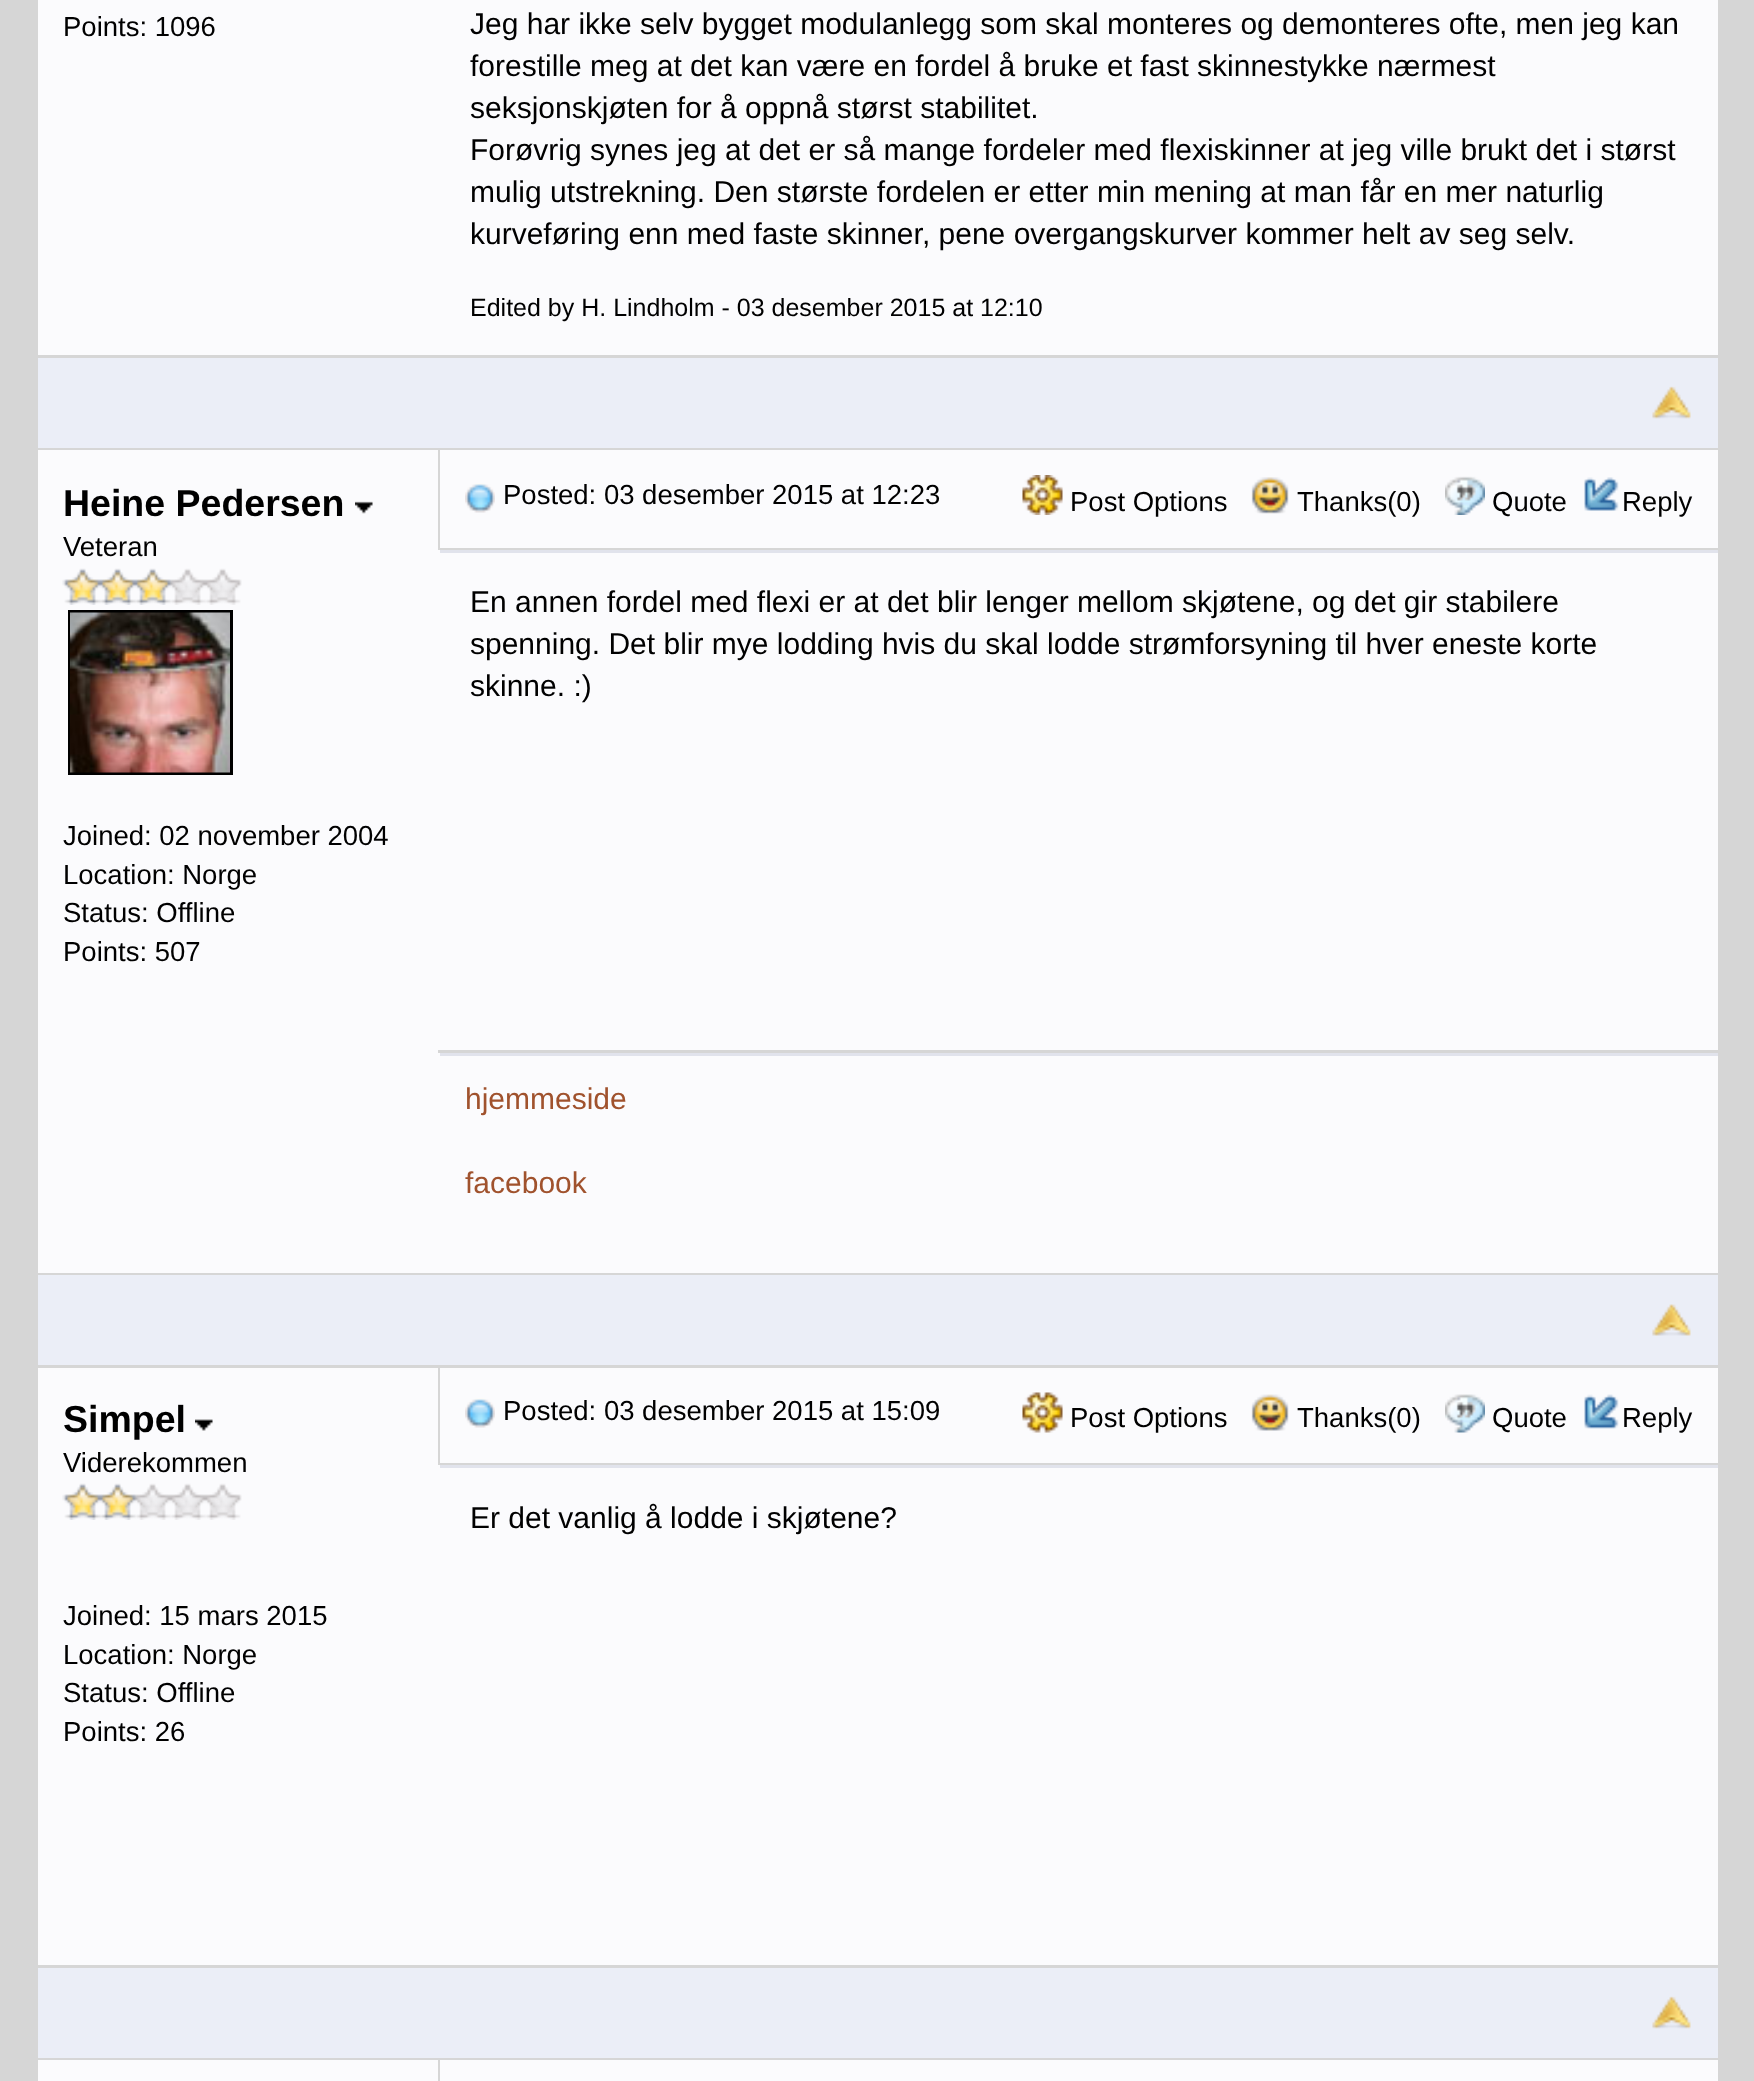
<svg xmlns="http://www.w3.org/2000/svg" width="1754" height="2081" viewBox="0 0 1754 2081">
  <rect width="100%" height="100%" fill="rgb(214,214,214)"/>
  <rect x="38" y="0" width="1680" height="355" fill="rgb(251,251,253)"/>
  <text x="63" y="36" font-family="Liberation Sans" font-size="27.5" fill="rgb(0,0,0)">Points: 1096</text>
  <g font-family="Liberation Sans" font-size="30" fill="rgb(0,0,0)">
    <text>
      <tspan x="470" y="34">Jeg har ikke selv bygget modulanlegg som skal monteres og demonteres ofte, men jeg kan</tspan>
      <tspan x="470" y="76">forestille meg at det kan være en fordel å bruke et fast skinnestykke nærmest</tspan>
      <tspan x="470" y="118">seksjonskjøten for å oppnå størst stabilitet.</tspan>
      <tspan x="470" y="160">Forøvrig synes jeg at det er så mange fordeler med flexiskinner at jeg ville brukt det i størst</tspan>
      <tspan x="470" y="202">mulig utstrekning. Den største fordelen er etter min mening at man får en mer naturlig</tspan>
      <tspan x="470" y="244">kurveføring enn med faste skinner, pene overgangskurver kommer helt av seg selv.</tspan>
    </text>
  </g>
  <text x="470" y="316" font-family="Liberation Sans" font-size="25" fill="rgb(0,0,0)">Edited by H. Lindholm - 03 desember 2015 at 12:10</text>
  <rect x="38" y="358" width="1680" height="90" fill="rgb(235,238,247)"/>
  <image x="1652" y="386" width="39" height="33" href="pic1.png"/>
  <rect x="38" y="450" width="400" height="603" fill="rgb(251,251,253)"/>
  <text x="63" y="516" font-family="Liberation Sans" font-size="37.5" font-weight="bold" fill="rgb(0,0,0)">Heine Pedersen</text>
  <image x="355" y="501" width="18" height="13" href="pic2.png"/>
  <text x="63" y="556" font-family="Liberation Sans" font-size="27.5" fill="rgb(0,0,0)">Veteran</text>
  <image x="62" y="568" width="180" height="37" href="pic3.png"/>
  <rect x="69.5" y="611.5" width="162" height="162" fill="none" stroke="rgb(0,0,0)" stroke-width="3"/>
  <image x="70" y="612" width="160" height="161" href="pic4.png"/>
  <g font-family="Liberation Sans" font-size="27.5" fill="rgb(0,0,0)">
    <text>
      <tspan x="63" y="845">Joined: 02 november 2004</tspan>
      <tspan x="63" y="884">Location: Norge</tspan>
      <tspan x="63" y="922">Status: Offline</tspan>
      <tspan x="63" y="961">Points: 507</tspan>
    </text>
  </g>
  <rect x="440" y="450" width="1278" height="98" fill="rgb(251,251,253)"/>
  <image x="465" y="483" width="30" height="30" href="pic5.png"/>
  <text x="503" y="504" font-family="Liberation Sans" font-size="27.5" fill="rgb(0,0,0)">Posted: 03 desember 2015 at 12:23</text>
  <image x="1022" y="475" width="41" height="40" href="pic6.png"/>
  <text x="1070" y="511" font-family="Liberation Sans" font-size="27.5" fill="rgb(0,0,0)">Post Options</text>
  <image x="1251" y="477" width="38" height="37" href="pic7.png"/>
  <text x="1297" y="511" font-family="Liberation Sans" font-size="27.5" fill="rgb(0,0,0)">Thanks(0)</text>
  <image x="1445" y="476" width="40" height="39" href="pic8.png"/>
  <text x="1492" y="511" font-family="Liberation Sans" font-size="27.5" fill="rgb(0,0,0)">Quote</text>
  <image x="1584" y="477" width="35" height="34" href="pic9.png"/>
  <text x="1622" y="511" font-family="Liberation Sans" font-size="27.5" fill="rgb(0,0,0)">Reply</text>
  <rect x="438" y="550" width="1280" height="500" fill="rgb(251,251,253)"/>
  <rect x="440" y="550" width="1278" height="3" fill="rgb(225,227,236)"/>
  <g font-family="Liberation Sans" font-size="30" fill="rgb(0,0,0)">
    <text>
      <tspan x="470" y="612">En annen fordel med flexi er at det blir lenger mellom skjøtene, og det gir stabilere</tspan>
      <tspan x="470" y="654">spenning. Det blir mye lodding hvis du skal lodde strømforsyning til hver eneste korte</tspan>
      <tspan x="470" y="696">skinne. :)</tspan>
    </text>
  </g>
  <rect x="38" y="1053" width="1680" height="220" fill="rgb(251,251,253)"/>
  <rect x="440" y="1053" width="1278" height="3" fill="rgb(225,227,236)"/>
  <g font-family="Liberation Sans" font-size="30" fill="rgb(160,82,45)">
    <text x="465" y="1109">hjemmeside</text>
    <text x="465" y="1193">facebook</text>
  </g>
  <rect x="38" y="1275" width="1680" height="90" fill="rgb(235,238,247)"/>
  <image x="1652" y="1304" width="39" height="32" href="pic10.png"/>
  <rect x="38" y="1368" width="400" height="97" fill="rgb(251,251,253)"/>
  <text x="63" y="1432" font-family="Liberation Sans" font-size="37.5" font-weight="bold" fill="rgb(0,0,0)">Simpel</text>
  <image x="195" y="1419" width="18" height="12" href="pic11.png"/>
  <rect x="38" y="1465" width="1680" height="500" fill="rgb(251,251,253)"/>
  <text x="63" y="1472" font-family="Liberation Sans" font-size="27.5" fill="rgb(0,0,0)">Viderekommen</text>
  <image x="62" y="1483" width="180" height="37" href="pic12.png"/>
  <g font-family="Liberation Sans" font-size="27.5" fill="rgb(0,0,0)">
    <text>
      <tspan x="63" y="1625">Joined: 15 mars 2015</tspan>
      <tspan x="63" y="1664">Location: Norge</tspan>
      <tspan x="63" y="1702">Status: Offline</tspan>
      <tspan x="63" y="1741">Points: 26</tspan>
    </text>
  </g>
  <rect x="440" y="1368" width="1278" height="95" fill="rgb(251,251,253)"/>
  <image x="465" y="1398" width="30" height="30" href="pic5.png"/>
  <text x="503" y="1420" font-family="Liberation Sans" font-size="27.5" fill="rgb(0,0,0)">Posted: 03 desember 2015 at 15:09</text>
  <image x="1022" y="1392" width="41" height="41" href="pic13.png"/>
  <text x="1070" y="1427" font-family="Liberation Sans" font-size="27.5" fill="rgb(0,0,0)">Post Options</text>
  <image x="1251" y="1394" width="38" height="37" href="pic14.png"/>
  <text x="1297" y="1427" font-family="Liberation Sans" font-size="27.5" fill="rgb(0,0,0)">Thanks(0)</text>
  <image x="1445" y="1394" width="40" height="39" href="pic15.png"/>
  <text x="1492" y="1427" font-family="Liberation Sans" font-size="27.5" fill="rgb(0,0,0)">Quote</text>
  <image x="1584" y="1394" width="35" height="35" href="pic16.png"/>
  <text x="1622" y="1427" font-family="Liberation Sans" font-size="27.5" fill="rgb(0,0,0)">Reply</text>
  <rect x="440" y="1465" width="1278" height="3" fill="rgb(225,227,236)"/>
  <text x="470" y="1528" font-family="Liberation Sans" font-size="30" fill="rgb(0,0,0)">Er det vanlig å lodde i skjøtene?</text>
  <rect x="38" y="1968" width="1680" height="90" fill="rgb(235,238,247)"/>
  <image x="1652" y="1996" width="39" height="33" href="pic1.png"/>
  <rect x="38" y="2060" width="400" height="21" fill="rgb(251,251,253)"/>
  <rect x="440" y="2060" width="1278" height="21" fill="rgb(251,251,253)"/>
</svg>
